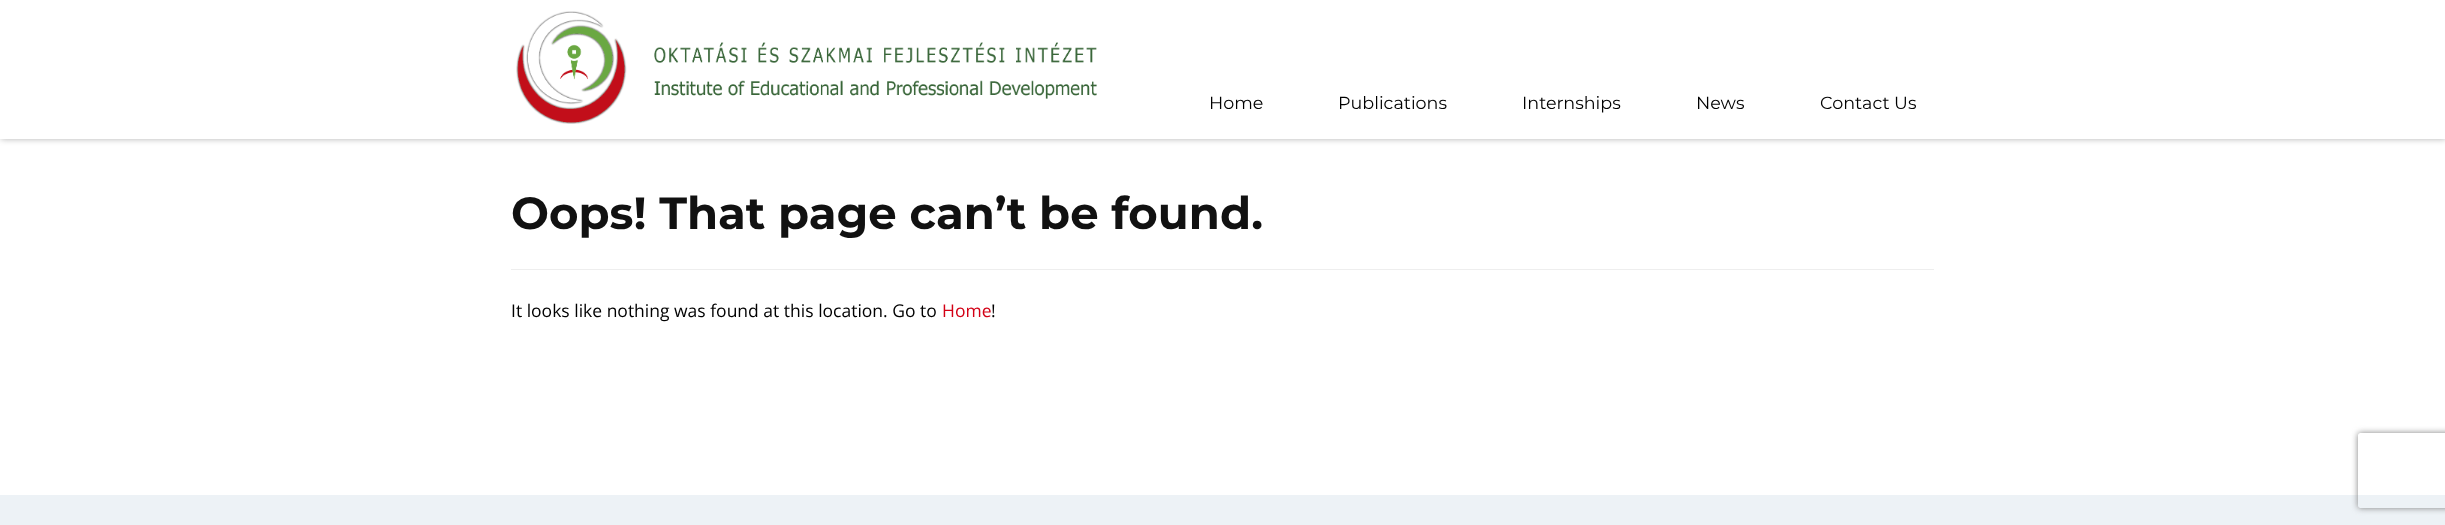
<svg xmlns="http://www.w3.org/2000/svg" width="2445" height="525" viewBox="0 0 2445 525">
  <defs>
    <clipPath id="clip1"><path d="M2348 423H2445V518H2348ZM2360.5 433H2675.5C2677 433 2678 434 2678 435.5V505.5C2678 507 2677 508 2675.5 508H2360.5C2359 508 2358 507 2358 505.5V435.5C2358 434 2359 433 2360.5 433Z" clip-rule="evenodd"/></clipPath>
  </defs>
  <rect width="100%" height="100%" fill="rgb(255,255,255)"/>
  <rect x="1" y="0" width="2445" height="139" fill="rgba(0,0,0,0.3)" filter="blur(3px)"/>
  <rect x="0" y="0" width="2445" height="139" fill="rgb(255,255,255)"/>
  <image x="516" y="11" width="581" height="113" href="pic1.png"/>
  <g font-family="Montserrat" font-size="17.5" fill="rgb(0,0,0)">
    <text x="1209" y="109">Home</text>
    <text x="1338" y="109">Publications</text>
    <text x="1522" y="109">Internships</text>
    <text x="1696" y="109">News</text>
    <text x="1820" y="109">Contact Us</text>
  </g>
  <rect x="511" y="269" width="1423" height="1" fill="rgb(238,238,238)"/>
  <text x="511" y="229" font-family="Montserrat" font-size="45" font-weight="bold" fill="rgb(17,17,17)">Oops! That page can’t be found.</text>
  <text x="511" y="317" font-family="Open Sans" font-size="17.5" fill="rgb(0,0,0)">It looks like nothing was found at this location. Go to</text>
  <text x="942" y="317" font-family="Open Sans" font-size="17.5" fill="rgb(211,0,21)">Home</text>
  <text x="991" y="317" font-family="Open Sans" font-size="17.5" fill="rgb(0,0,0)">!</text>
  <rect x="0" y="495" width="2445" height="30" fill="rgb(237,242,246)"/>
  <g clip-path="url(#clip1)">
    <rect x="2358" y="433" width="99" height="75" rx="2.5" fill="rgb(128,128,128)" filter="blur(3px)"/>
  </g>
</svg>
